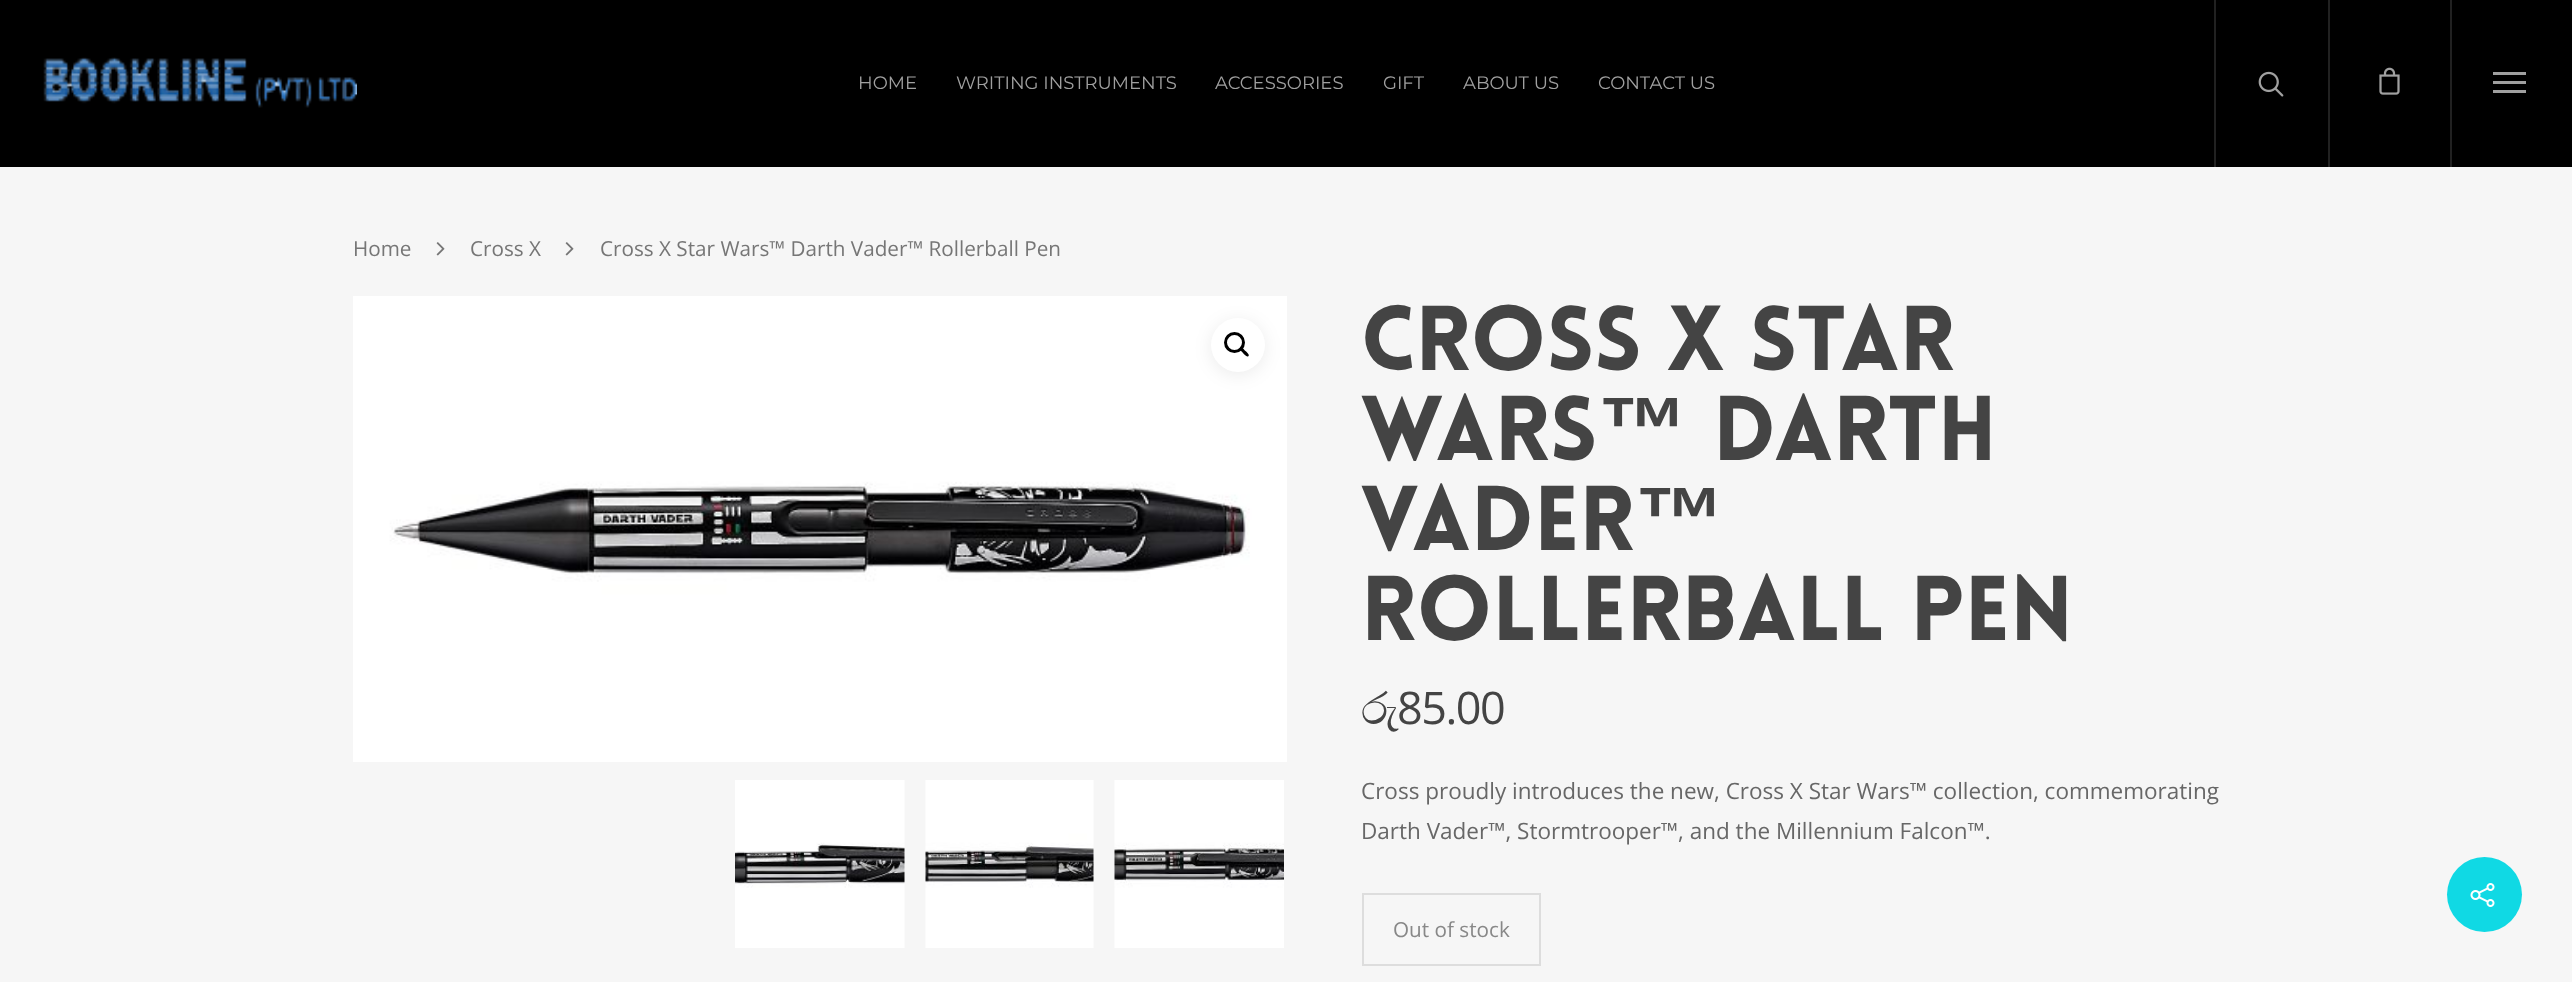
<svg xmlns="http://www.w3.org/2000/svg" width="2572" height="982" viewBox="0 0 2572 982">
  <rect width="100%" height="100%" fill="rgb(246,246,246)"/>
  <rect x="0" y="0" width="2572" height="167" fill="rgb(0,0,0)"/>
  <image x="43" y="57" width="314" height="51" href="pic1.png"/>
  <g font-family="Montserrat" font-size="18" font-weight="100" fill="rgb(160,160,160)">
    <text x="858" y="89">HOME</text>
    <text x="956" y="89">WRITING INSTRUMENTS</text>
    <text x="1215" y="89">ACCESSORIES</text>
    <text x="1383" y="89">GIFT</text>
    <text x="1463" y="89">ABOUT US</text>
    <text x="1598" y="89">CONTACT US</text>
  </g>
  <rect x="2214" y="0" width="2" height="167" fill="rgb(33,33,33)"/>
  <image x="2258" y="71" width="26" height="26" href="pic2.png"/>
  <rect x="2450" y="0" width="2" height="167" fill="rgb(33,33,33)"/>
  <rect x="2493" y="72" width="33" height="3" fill="rgb(160,160,160)"/>
  <rect x="2493" y="90" width="33" height="3" fill="rgb(160,160,160)"/>
  <rect x="2493" y="81" width="33" height="3" fill="rgb(160,160,160)"/>
  <rect x="2328" y="0" width="2" height="167" fill="rgb(33,33,33)"/>
  <image x="2379" y="67" width="21" height="28" href="pic3.png"/>
  <text x="353" y="256" font-family="Open Sans" font-size="20.7" fill="rgb(118,118,118)">Home</text>
  <image x="436" y="242" width="9" height="14" href="pic4.png"/>
  <text x="470" y="256" font-family="Open Sans" font-size="20.7" fill="rgb(118,118,118)">Cross X</text>
  <image x="565" y="242" width="9" height="14" href="pic4.png"/>
  <text x="600" y="256" font-family="Open Sans" font-size="20.7" fill="rgb(118,118,118)">Cross X Star Wars™ Darth Vader™ Rollerball Pen</text>
  <image x="353" y="296" width="934" height="466" href="pic5.png"/>
  <rect x="1211" y="321" width="54" height="54" rx="27" fill="rgba(0,0,0,0.08)" filter="blur(9px)"/>
  <circle cx="1238" cy="345" r="27" fill="rgb(255,255,255)"/>
  <circle cx="1234.5" cy="342.5" r="9" fill="none" stroke="rgb(0,0,0)" stroke-width="3"/>
  <path d="M1240 347.5C1241.5 346 1244.5 350 1245.5 351C1246 351.5 1250 354.5 1248.5 356C1247 358 1244 354 1243 353C1242.5 352 1238.5 349.5 1240 347.5Z" fill="rgb(0,0,0)"/>
  <image x="735" y="780" width="170" height="168" href="pic6.png"/>
  <image x="925" y="780" width="169" height="168" href="pic7.png"/>
  <image x="1114" y="780" width="170" height="168" href="pic8.png"/>
  <g font-family="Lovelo" font-size="90" font-weight="900" fill="rgb(68,68,68)">
    <text>
      <tspan x="1361" y="370">Cross X Star</tspan>
      <tspan x="1361" y="460">Wars</tspan>
    </text>
  </g>
  <text x="1598" y="460" font-family="Liberation Sans" font-size="90" font-weight="bold" fill="rgb(68,68,68)">™</text>
  <g font-family="Lovelo" font-size="90" font-weight="900" fill="rgb(68,68,68)">
    <text x="1713" y="460">Darth</text>
    <text x="1361" y="550">Vader</text>
  </g>
  <text x="1635" y="550" font-family="Liberation Sans" font-size="90" font-weight="bold" fill="rgb(68,68,68)">™</text>
  <text x="1361" y="640" font-family="Lovelo" font-size="90" font-weight="900" fill="rgb(68,68,68)">Rollerball Pen</text>
  <text x="1361" y="724" font-family="FreeSerif" font-size="45" letter-spacing="-1.5" fill="rgb(68,68,68)">රු</text>
  <text x="1397" y="724" font-family="Open Sans" font-size="45" letter-spacing="-1.5" fill="rgb(68,68,68)">85.00</text>
  <g font-family="Open Sans" font-size="22.5" fill="rgb(103,103,103)">
    <text>
      <tspan x="1361" y="799">Cross proudly introduces the new, Cross X Star Wars™ collection, commemorating</tspan>
      <tspan x="1361" y="839">Darth Vader™, Stormtrooper™, and the Millennium Falcon™.</tspan>
    </text>
  </g>
  <rect x="1363" y="894" width="177" height="71" fill="none" stroke="rgb(221,221,221)" stroke-width="2"/>
  <text x="1393" y="937" font-family="Open Sans" font-size="20.7" fill="rgb(136,136,136)">Out of stock</text>
  <circle cx="2484.5" cy="894.5" r="37.5" fill="rgb(16,217,228)"/>
  <image x="2470" y="883" width="25" height="24" href="pic9.png"/>
</svg>
